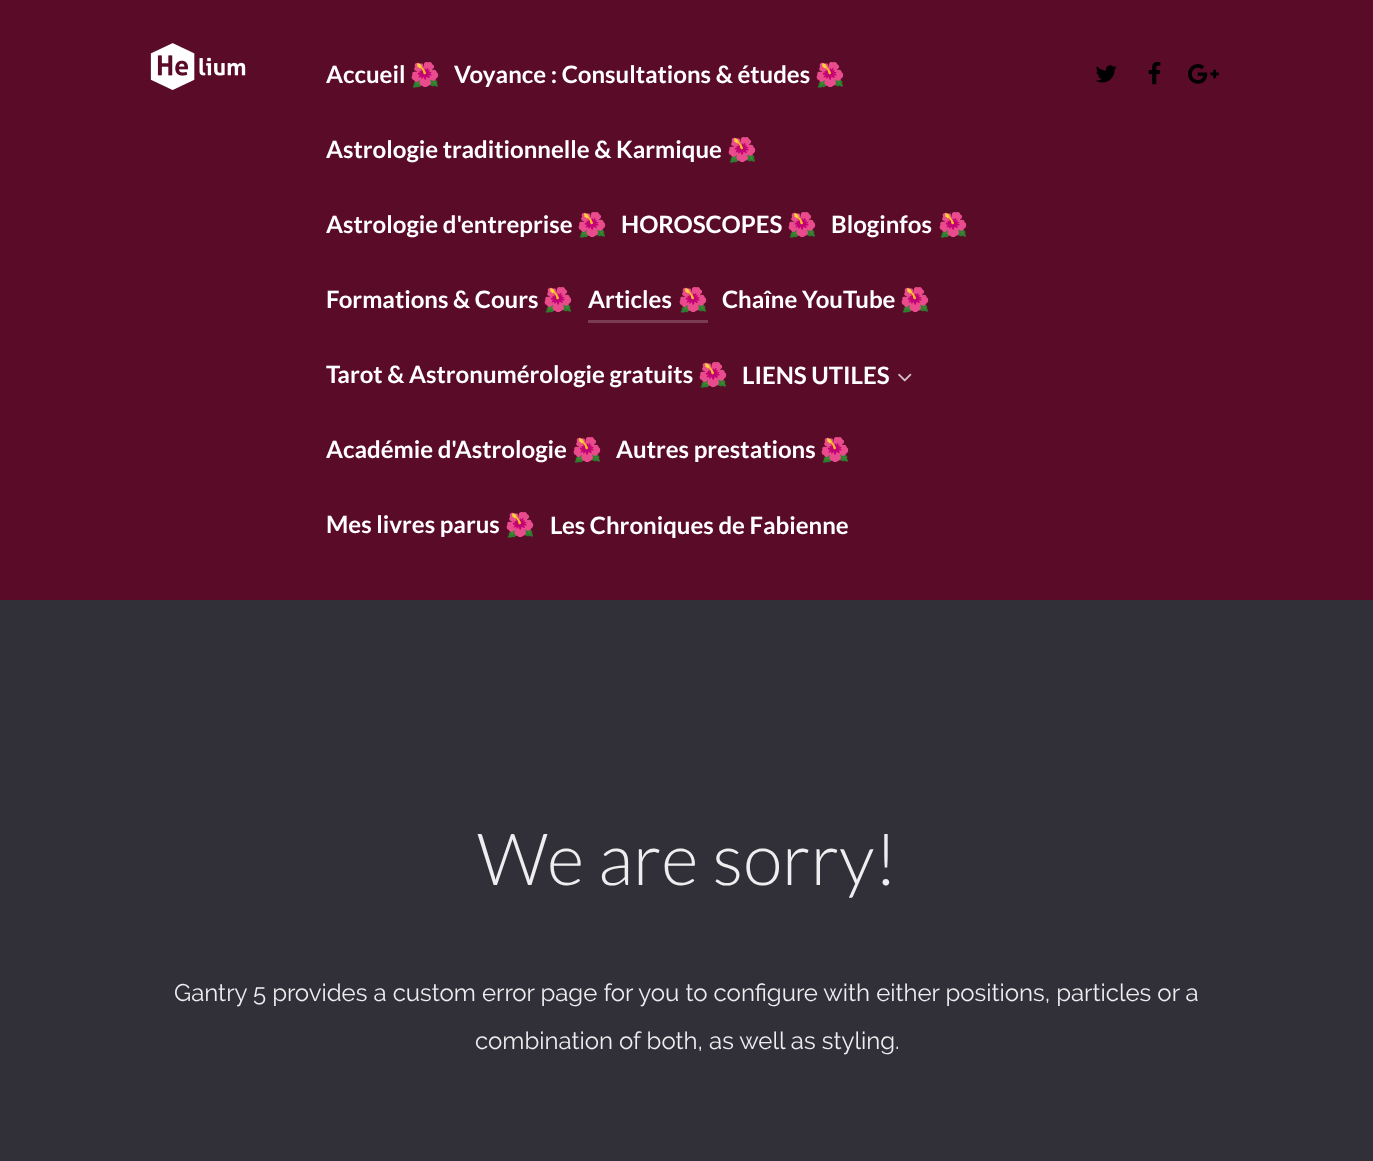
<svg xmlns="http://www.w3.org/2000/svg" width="1373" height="1161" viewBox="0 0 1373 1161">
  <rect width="100%" height="100%" fill="rgb(49,47,56)"/>
  <rect x="0" y="0" width="1373" height="600" fill="rgb(90,11,40)"/>
  <image x="150" y="43" width="96" height="47" href="pic1.png"/>
  <text x="326" y="83" font-family="Lato" font-size="24" font-weight="bold" fill="rgb(255,255,255)">Accueil</text>
  <text x="410" y="83" font-family="Noto Color Emoji" font-size="24" font-weight="bold" fill="rgb(255,255,255)">🌺</text>
  <text x="454" y="83" font-family="Lato" font-size="24" font-weight="bold" fill="rgb(255,255,255)">Voyance : Consultations &amp; études</text>
  <text x="815" y="83" font-family="Noto Color Emoji" font-size="24" font-weight="bold" fill="rgb(255,255,255)">🌺</text>
  <text x="326" y="158" font-family="Lato" font-size="24" font-weight="bold" fill="rgb(255,255,255)">Astrologie traditionnelle &amp; Karmique</text>
  <text x="727" y="158" font-family="Noto Color Emoji" font-size="24" font-weight="bold" fill="rgb(255,255,255)">🌺</text>
  <text x="326" y="233" font-family="Lato" font-size="24" font-weight="bold" fill="rgb(255,255,255)">Astrologie d'entreprise</text>
  <text x="577" y="233" font-family="Noto Color Emoji" font-size="24" font-weight="bold" fill="rgb(255,255,255)">🌺</text>
  <text x="621" y="233" font-family="Lato" font-size="24" font-weight="bold" fill="rgb(255,255,255)">HOROSCOPES</text>
  <text x="787" y="233" font-family="Noto Color Emoji" font-size="24" font-weight="bold" fill="rgb(255,255,255)">🌺</text>
  <text x="831" y="233" font-family="Lato" font-size="24" font-weight="bold" fill="rgb(255,255,255)">Bloginfos</text>
  <text x="938" y="233" font-family="Noto Color Emoji" font-size="24" font-weight="bold" fill="rgb(255,255,255)">🌺</text>
  <text x="326" y="308" font-family="Lato" font-size="24" font-weight="bold" fill="rgb(255,255,255)">Formations &amp; Cours</text>
  <text x="543" y="308" font-family="Noto Color Emoji" font-size="24" font-weight="bold" fill="rgb(255,255,255)">🌺</text>
  <rect x="588" y="320" width="120" height="3" fill="rgb(123,60,83)"/>
  <text x="588" y="308" font-family="Lato" font-size="24" font-weight="bold" fill="rgb(255,255,255)">Articles</text>
  <text x="678" y="308" font-family="Noto Color Emoji" font-size="24" font-weight="bold" fill="rgb(255,255,255)">🌺</text>
  <text x="722" y="308" font-family="Lato" font-size="24" font-weight="bold" fill="rgb(255,255,255)">Chaîne YouTube</text>
  <text x="900" y="308" font-family="Noto Color Emoji" font-size="24" font-weight="bold" fill="rgb(255,255,255)">🌺</text>
  <text x="326" y="383" font-family="Lato" font-size="24" font-weight="bold" fill="rgb(255,255,255)">Tarot &amp; Astronumérologie gratuits</text>
  <text x="698" y="383" font-family="Noto Color Emoji" font-size="24" font-weight="bold" fill="rgb(255,255,255)">🌺</text>
  <text x="742" y="384" font-family="Lato" font-size="24" font-weight="bold" fill="rgb(255,255,255)">LIENS UTILES</text>
  <image x="898" y="373" width="14" height="9" href="pic2.png"/>
  <text x="326" y="458" font-family="Lato" font-size="24" font-weight="bold" fill="rgb(255,255,255)">Académie d'Astrologie</text>
  <text x="572" y="458" font-family="Noto Color Emoji" font-size="24" font-weight="bold" fill="rgb(255,255,255)">🌺</text>
  <text x="616" y="458" font-family="Lato" font-size="24" font-weight="bold" fill="rgb(255,255,255)">Autres prestations</text>
  <text x="820" y="458" font-family="Noto Color Emoji" font-size="24" font-weight="bold" fill="rgb(255,255,255)">🌺</text>
  <text x="326" y="533" font-family="Lato" font-size="24" font-weight="bold" fill="rgb(255,255,255)">Mes livres parus</text>
  <text x="505" y="533" font-family="Noto Color Emoji" font-size="24" font-weight="bold" fill="rgb(255,255,255)">🌺</text>
  <text x="550" y="534" font-family="Lato" font-size="24" font-weight="bold" fill="rgb(255,255,255)">Les Chroniques de Fabienne</text>
  <image x="1096" y="65" width="21" height="18" href="pic3.png"/>
  <image x="1148" y="61" width="13" height="24" href="pic4.png"/>
  <image x="1188" y="64" width="31" height="20" href="pic5.png"/>
  <text x="477" y="885" font-family="Lato" font-size="72" font-weight="300" fill="rgb(236,238,239)">We are sorry!</text>
  <g font-family="Raleway" font-size="24" fill="rgb(236,238,239)">
    <text x="174" y="1001">Gantry 5 provides a custom error page for you to configure with either positions, particles or a</text>
    <text x="475" y="1049">combination of both, as well as styling.</text>
  </g>
</svg>
